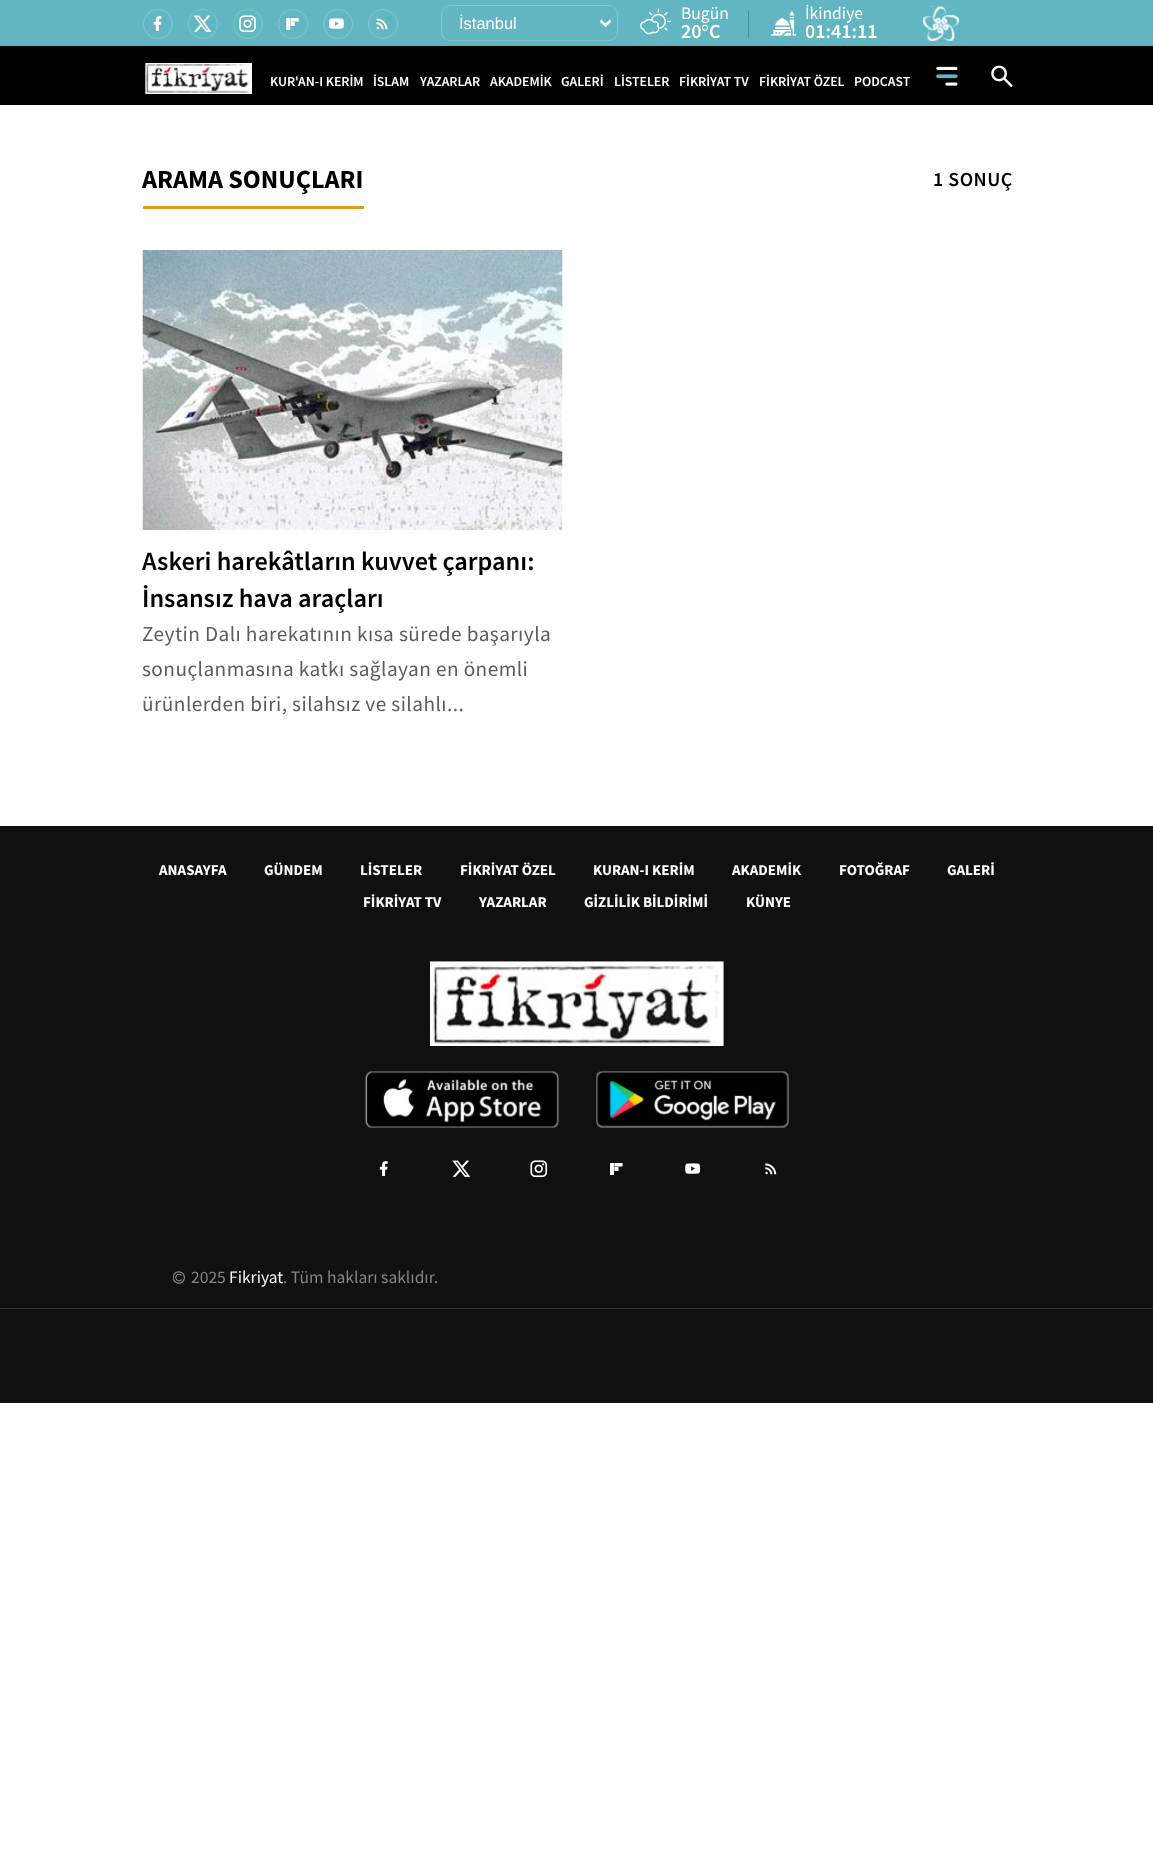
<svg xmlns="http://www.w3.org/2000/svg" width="1153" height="1875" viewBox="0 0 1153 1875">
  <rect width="100%" height="100%" fill="rgb(255,255,255)"/>
  <rect x="0" y="0" width="1153" height="46" fill="rgb(98,182,193)"/>
  <circle cx="158" cy="24" r="14.5" fill="none" stroke="rgb(129,197,205)"/>
  <image x="153" y="16" width="9" height="15" href="pic1.png"/>
  <circle cx="203" cy="24" r="14.5" fill="none" stroke="rgb(129,197,205)"/>
  <image x="193" y="15" width="19" height="17" href="pic2.png"/>
  <circle cx="248" cy="24" r="14.5" fill="none" stroke="rgb(129,197,205)"/>
  <image x="239" y="15" width="17" height="18" href="pic3.png"/>
  <circle cx="293" cy="24" r="14.5" fill="none" stroke="rgb(129,197,205)"/>
  <image x="286" y="18" width="13" height="12" href="pic4.png"/>
  <circle cx="338" cy="24" r="14.5" fill="none" stroke="rgb(129,197,205)"/>
  <image x="329" y="18" width="15" height="11" href="pic5.png"/>
  <circle cx="383" cy="24" r="14.5" fill="none" stroke="rgb(129,197,205)"/>
  <image x="376" y="18" width="12" height="12" href="pic6.png"/>
  <rect x="441.5" y="5.5" width="176" height="35" rx="8.5" fill="none" stroke="rgb(129,197,205)"/>
  <path d="M600.5 20.5L605.5 25.5L610.5 20.5" fill="none" stroke="rgb(255,255,255)" stroke-width="2.5"/>
  <text x="459" y="29" font-family="Liberation Sans" font-size="16.5" fill="rgb(255,255,255)">İstanbul</text>
  <image x="640" y="8" width="32" height="27" href="pic7.png"/>
  <text x="681" y="19" font-family="Source Sans Pro" font-size="17.5" fill="rgb(255,255,255)">Bugün</text>
  <text x="681" y="38" font-family="Source Sans Pro" font-size="20" font-weight="600" fill="rgb(255,255,255)">20</text>
  <text x="701" y="38" font-family="Liberation Serif" font-size="20" fill="rgb(255,255,255)">°</text>
  <text x="709" y="38" font-family="Source Sans Pro" font-size="20" font-weight="600" fill="rgb(255,255,255)">C</text>
  <rect x="748" y="11" width="1" height="27" fill="rgb(72,142,151)"/>
  <image x="771" y="11" width="25" height="25" href="pic8.png"/>
  <text x="805" y="19" font-family="Source Sans Pro" font-size="17.5" fill="rgb(255,255,255)">İkindiye</text>
  <text x="805" y="38" font-family="Source Sans Pro" font-size="20" font-weight="600" fill="rgb(255,255,255)">01:41:11</text>
  <image x="923" y="6" width="37" height="35" href="pic9.png"/>
  <rect x="0" y="46" width="1153" height="59" fill="rgb(0,0,0)"/>
  <image x="145" y="63" width="107" height="31" href="pic10.png"/>
  <g font-family="Source Sans Pro" font-size="13.75" font-weight="600" fill="rgb(255,255,255)">
    <text x="270" y="86">KUR'AN-I KERİM</text>
    <text x="373" y="86">İSLAM</text>
    <text x="420" y="86">YAZARLAR</text>
    <text x="490" y="86">AKADEMİK</text>
    <text x="561" y="86">GALERİ</text>
    <text x="614" y="86">LİSTELER</text>
    <text x="679" y="86">FİKRİYAT TV</text>
    <text x="759" y="86">FİKRİYAT ÖZEL</text>
    <text x="854" y="86">PODCAST</text>
  </g>
  <image x="936" y="66" width="22" height="20" href="pic11.png"/>
  <image x="991" y="65" width="22" height="22" href="pic12.png"/>
  <rect x="143" y="206" width="221" height="3" fill="rgb(225,156,22)"/>
  <text x="142" y="188" font-family="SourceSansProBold" font-size="26.25" font-weight="bold" fill="rgb(0,0,0)">ARAMA SONUÇLARI</text>
  <text x="933" y="186" font-family="Source Sans Pro" font-size="20" font-weight="600" letter-spacing="0.5" fill="rgb(0,0,0)">1 SONUÇ</text>
  <image x="142" y="250" width="421" height="280" href="pic13.png"/>
  <g font-family="Source Sans Pro" font-size="26.25" font-weight="600" fill="rgb(0,0,0)">
    <text>
      <tspan x="142" y="570">Askeri harekâtların kuvvet çarpanı:</tspan>
      <tspan x="142" y="607">İnsansız hava araçları</tspan>
    </text>
  </g>
  <g font-family="Source Sans Pro" font-size="21.25" letter-spacing="0.45" fill="rgb(95,91,91)">
    <text>
      <tspan x="142" y="641">Zeytin Dalı harekatının kısa sürede başarıyla</tspan>
      <tspan x="142" y="676">sonuçlanmasına katkı sağlayan en önemli</tspan>
      <tspan x="142" y="711">ürünlerden biri, silahsız ve silahlı...</tspan>
    </text>
  </g>
  <rect x="0" y="826" width="1153" height="577" fill="rgb(16,16,16)"/>
  <rect x="0" y="1308" width="1153" height="1" fill="rgb(54,54,54)"/>
  <g font-family="SourceSansProBold" font-size="15" font-weight="bold" fill="rgb(255,255,255)">
    <text x="159" y="875">ANASAYFA</text>
    <text x="264" y="875">GÜNDEM</text>
    <text x="360" y="875">LİSTELER</text>
    <text x="460" y="875">FİKRİYAT ÖZEL</text>
    <text x="593" y="875">KURAN-I KERİM</text>
    <text x="732" y="875">AKADEMİK</text>
    <text x="839" y="875">FOTOĞRAF</text>
    <text x="947" y="875">GALERİ</text>
    <text x="363" y="907">FİKRİYAT TV</text>
    <text x="479" y="907">YAZARLAR</text>
    <text x="584" y="907">GİZLİLİK BİLDİRİMİ</text>
    <text x="746" y="907">KÜNYE</text>
  </g>
  <image x="430" y="961" width="294" height="85" href="pic14.png"/>
  <image x="365" y="1071" width="194" height="57" href="pic15.png"/>
  <image x="596" y="1071" width="193" height="57" href="pic16.png"/>
  <image x="379" y="1161" width="9" height="15" href="pic17.png"/>
  <image x="452" y="1160" width="19" height="17" href="pic18.png"/>
  <image x="530" y="1160" width="18" height="18" href="pic19.png"/>
  <image x="610" y="1163" width="13" height="12" href="pic20.png"/>
  <image x="685" y="1163" width="16" height="11" href="pic21.png"/>
  <image x="765" y="1163" width="12" height="12" href="pic22.png"/>
  <image x="173" y="1271" width="12" height="13" href="pic23.png"/>
  <text x="191" y="1283" font-family="Source Sans Pro" font-size="17.5" fill="rgb(132,132,132)">2025</text>
  <text x="229" y="1283" font-family="Source Sans Pro" font-size="17.5" fill="rgb(246,246,246)">Fikriyat</text>
  <text x="283" y="1283" font-family="Source Sans Pro" font-size="17.5" fill="rgb(132,132,132)">. Tüm hakları saklıdır.</text>
</svg>
